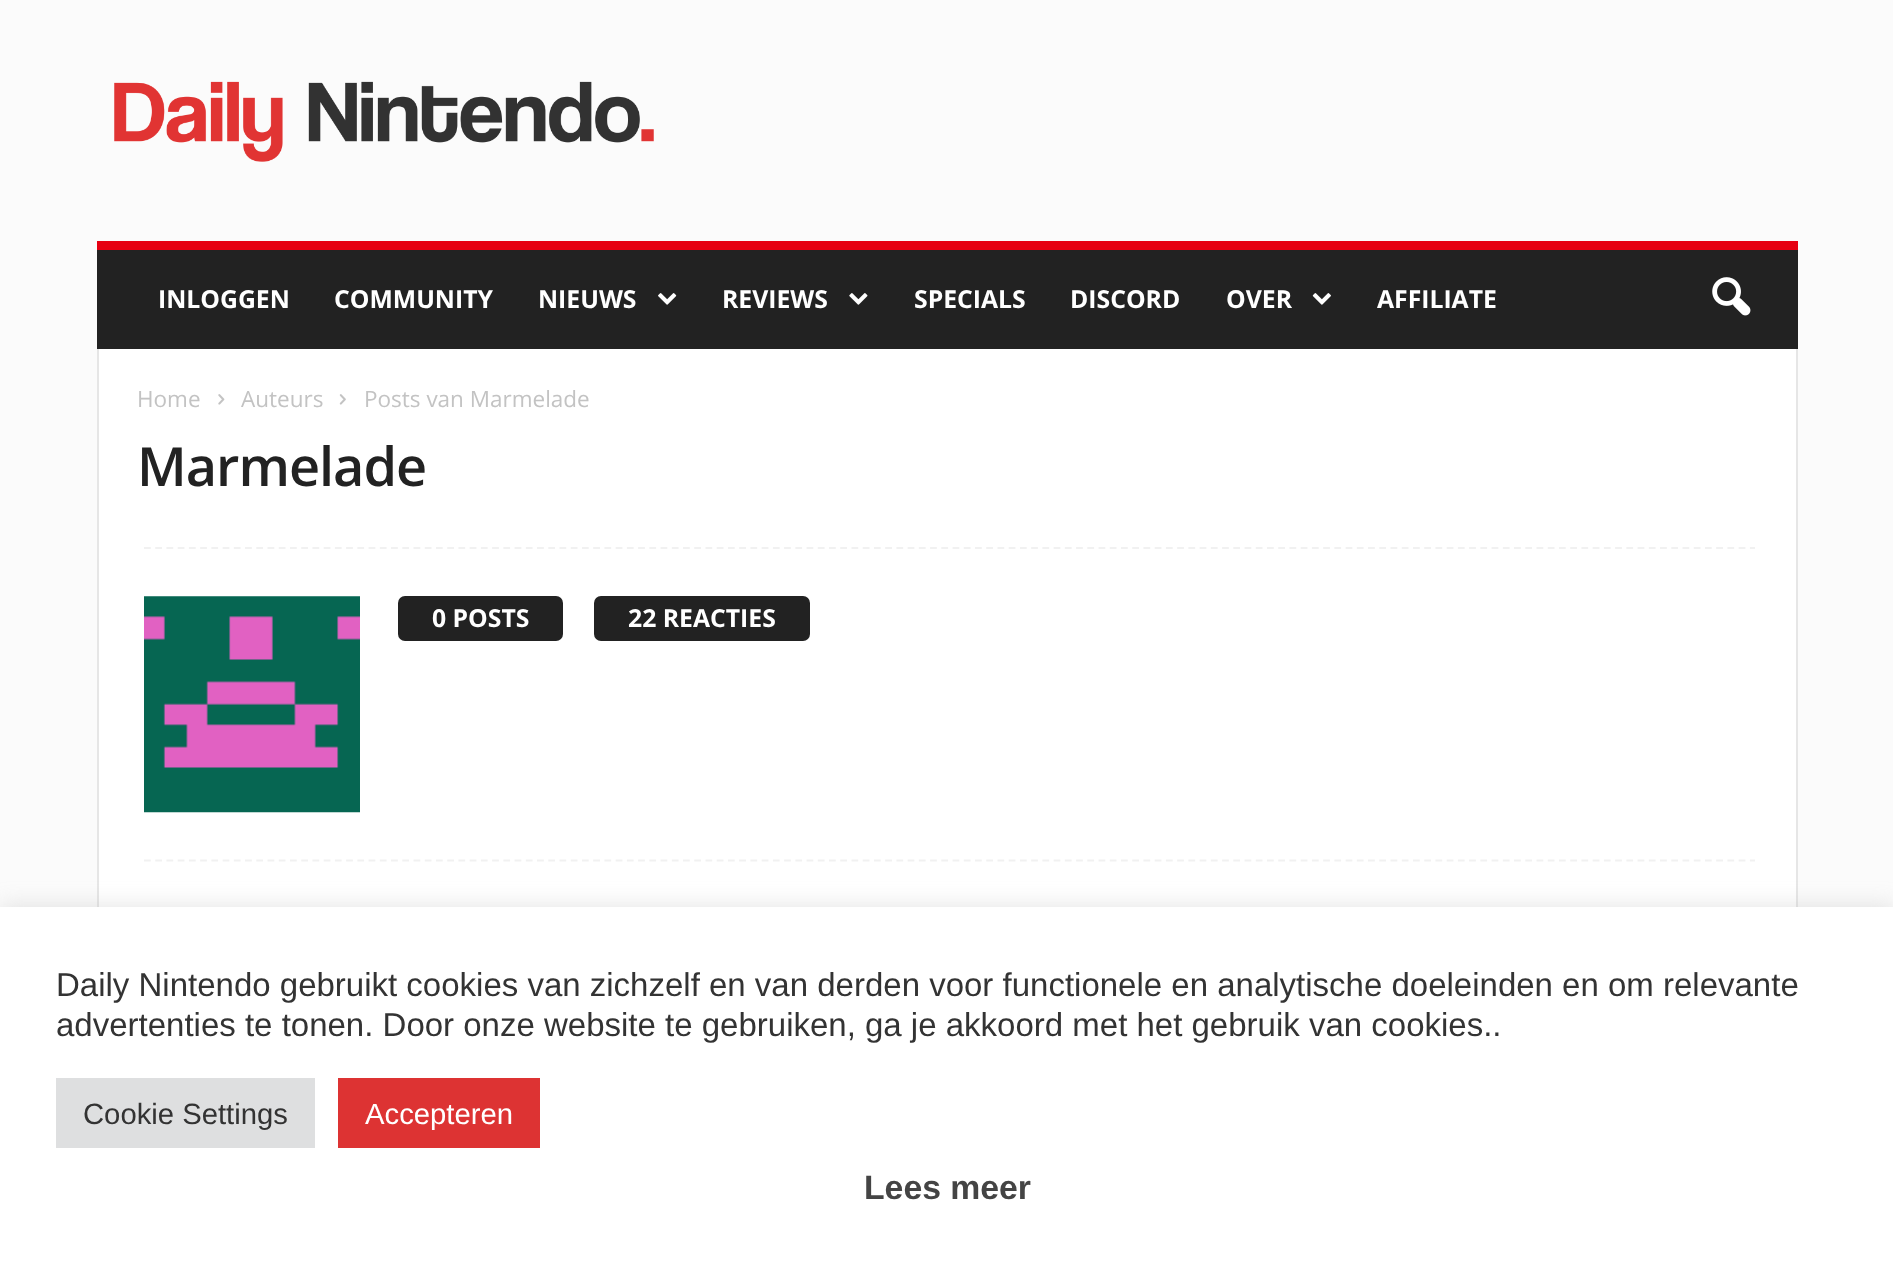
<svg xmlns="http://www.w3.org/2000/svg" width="1893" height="1266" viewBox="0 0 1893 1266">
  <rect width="100%" height="100%" fill="rgb(251,251,251)"/>
  <image x="114" y="81" width="540" height="81" href="pic1.png"/>
  <rect x="97" y="250" width="1701" height="99" fill="rgb(34,34,34)"/>
  <rect x="97" y="241" width="1701" height="9" fill="rgb(230,0,18)"/>
  <g font-family="Open Sans" font-size="24.75" font-weight="bold" fill="rgb(255,255,255)">
    <text x="158" y="308">INLOGGEN</text>
    <text x="334" y="308">COMMUNITY</text>
    <text x="538" y="308">NIEUWS</text>
  </g>
  <image x="658" y="293" width="19" height="12" href="pic2.png"/>
  <text x="722" y="308" font-family="Open Sans" font-size="24.75" font-weight="bold" fill="rgb(255,255,255)">REVIEWS</text>
  <image x="849" y="293" width="19" height="12" href="pic3.png"/>
  <g font-family="Open Sans" font-size="24.75" font-weight="bold" fill="rgb(255,255,255)">
    <text x="914" y="308">SPECIALS</text>
    <text x="1070" y="308">DISCORD</text>
    <text x="1226" y="308">OVER</text>
  </g>
  <image x="1312" y="293" width="19" height="12" href="pic4.png"/>
  <text x="1377" y="308" font-family="Open Sans" font-size="24.75" font-weight="bold" fill="rgb(255,255,255)">AFFILIATE</text>
  <image x="1712" y="277" width="39" height="39" href="pic5.png"/>
  <rect x="99" y="349" width="1697" height="558" fill="rgb(255,255,255)"/>
  <rect x="97" y="349" width="2" height="558" fill="rgb(230,230,230)"/>
  <text x="137" y="407" font-family="Open Sans" font-size="22.5" fill="rgb(195,195,195)">Home</text>
  <image x="218" y="394" width="7" height="11" href="pic6.png"/>
  <text x="241" y="407" font-family="Open Sans" font-size="22.5" fill="rgb(195,195,195)">Auteurs</text>
  <image x="339" y="394" width="7" height="11" href="pic7.png"/>
  <text x="364" y="407" font-family="Open Sans" font-size="22.5" fill="rgb(195,195,195)">Posts van Marmelade</text>
  <text x="137" y="486" font-family="Open Sans" font-size="54" font-weight="600" letter-spacing="-1" fill="rgb(34,34,34)">Marmelade</text>
  <path d="M144 548H1755" fill="none" stroke="rgb(241,241,241)" stroke-width="2.2" stroke-dasharray="6.75 4.48"/>
  <path d="M144 860.5H1755" fill="none" stroke="rgb(241,241,241)" stroke-width="2.2" stroke-dasharray="6.75 4.48"/>
  <image x="144" y="596" width="216" height="217" href="pic8.png"/>
  <rect x="398" y="596" width="165" height="45" rx="7" fill="rgb(34,34,34)"/>
  <text x="432" y="627" font-family="Open Sans" font-size="24.75" font-weight="bold" fill="rgb(255,255,255)">0 POSTS</text>
  <rect x="594" y="596" width="216" height="45" rx="7" fill="rgb(34,34,34)"/>
  <text x="628" y="627" font-family="Open Sans" font-size="24.75" font-weight="bold" fill="rgb(255,255,255)">22 REACTIES</text>
  <rect x="1796" y="349" width="2" height="558" fill="rgb(230,230,230)"/>
  <rect x="0" y="905" width="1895" height="360" fill="rgba(172,171,171,0.3)" filter="blur(11px)"/>
  <rect x="0" y="907" width="1893" height="359" fill="rgb(255,255,255)"/>
  <g font-family="Liberation Sans" font-size="33" fill="rgb(51,51,51)">
    <text>
      <tspan x="56" y="996">Daily Nintendo gebruikt cookies van zichzelf en van derden voor functionele en analytische doeleinden en om relevante</tspan>
      <tspan x="56" y="1036">advertenties te tonen. Door onze website te gebruiken, ga je akkoord met het gebruik van cookies..</tspan>
    </text>
  </g>
  <rect x="56" y="1078" width="259" height="70" fill="rgb(222,223,224)"/>
  <text x="83" y="1124" font-family="Liberation Sans" font-size="29.25" fill="rgb(51,51,51)">Cookie Settings</text>
  <rect x="338" y="1078" width="202" height="70" fill="rgb(221,51,51)"/>
  <text x="365" y="1124" font-family="Liberation Sans" font-size="29.25" fill="rgb(255,255,255)">Accepteren</text>
  <text x="864" y="1199" font-family="Liberation Sans" font-size="33.75" font-weight="bold" fill="rgb(68,68,68)">Lees meer</text>
</svg>
